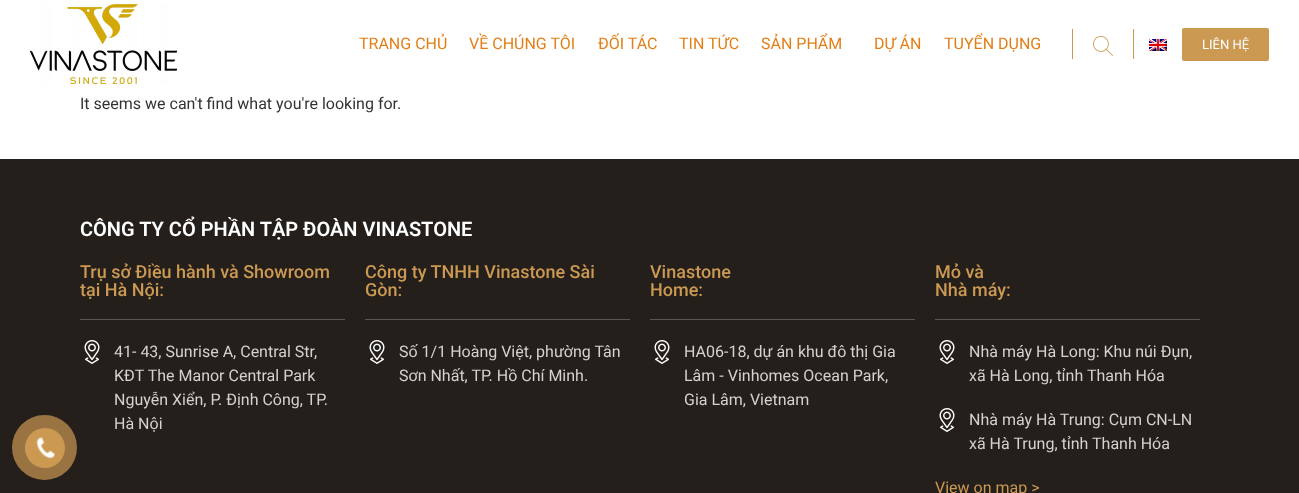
<svg xmlns="http://www.w3.org/2000/svg" width="1299" height="493" viewBox="0 0 1299 493">
  <rect width="100%" height="100%" fill="rgb(255,255,255)"/>
  <image x="30" y="4" width="147" height="80" href="pic1.png"/>
  <g font-family="Roboto" font-size="16" fill="rgb(228,127,23)">
    <text x="359" y="49">TRANG CHỦ</text>
    <text x="469" y="49">VỀ CHÚNG TÔI</text>
    <text x="598" y="49">ĐỐI TÁC</text>
    <text x="679" y="49">TIN TỨC</text>
    <text x="761" y="49">SẢN PHẨM</text>
    <text x="874" y="49">DỰ ÁN</text>
    <text x="944" y="49">TUYỂN DỤNG</text>
  </g>
  <rect x="1133" y="29" width="1" height="30" fill="rgb(203,153,82)"/>
  <rect x="1072" y="29" width="1" height="30" fill="rgb(203,153,82)"/>
  <image x="1093" y="36" width="20" height="20" href="pic2.png"/>
  <image x="1149" y="39" width="18" height="12" href="pic3.png"/>
  <rect x="1182" y="28" width="87" height="33" rx="2" fill="rgb(203,153,82)"/>
  <text x="1202" y="49" font-family="Roboto" font-size="13" fill="rgb(255,255,255)">LIÊN HỆ</text>
  <text x="80" y="109" font-family="Roboto" font-size="16" fill="rgb(51,51,51)">It seems we can't find what you're looking for.</text>
  <rect x="0" y="159" width="1299" height="334" fill="rgb(36,31,27)"/>
  <circle cx="44.5" cy="447.5" r="32.5" fill="rgb(153,116,66)"/>
  <circle cx="45" cy="448" r="20" fill="rgb(203,153,82)"/>
  <image x="36" y="437" width="19" height="22" href="pic4.png"/>
  <text x="80" y="236" font-family="Roboto" font-size="20" font-weight="600" fill="rgb(255,255,255)">CÔNG TY CỔ PHẦN TẬP ĐOÀN VINASTONE</text>
  <rect x="80" y="319" width="265" height="1" fill="rgb(89,85,82)"/>
  <g font-family="Roboto" font-size="18" font-weight="500" fill="rgb(203,153,82)">
    <text>
      <tspan x="80" y="278">Trụ sở Điều hành và Showroom</tspan>
      <tspan x="80" y="296">tại Hà Nội:</tspan>
    </text>
  </g>
  <image x="84" y="340" width="16" height="24" href="pic5.png"/>
  <g font-family="Roboto" font-size="16" fill="rgb(211,210,209)">
    <text>
      <tspan x="114" y="357">41- 43, Sunrise A, Central Str,</tspan>
      <tspan x="114" y="381">KĐT The Manor Central Park</tspan>
      <tspan x="114" y="405">Nguyễn Xiển, P. Định Công, TP.</tspan>
      <tspan x="114" y="429">Hà Nội</tspan>
    </text>
  </g>
  <rect x="365" y="319" width="265" height="1" fill="rgb(89,85,82)"/>
  <g font-family="Roboto" font-size="18" font-weight="500" fill="rgb(203,153,82)">
    <text>
      <tspan x="365" y="278">Công ty TNHH Vinastone Sài</tspan>
      <tspan x="365" y="296">Gòn:</tspan>
    </text>
  </g>
  <image x="369" y="340" width="16" height="24" href="pic5.png"/>
  <g font-family="Roboto" font-size="16" fill="rgb(211,210,209)">
    <text>
      <tspan x="399" y="357">Số 1/1 Hoàng Việt, phường Tân</tspan>
      <tspan x="399" y="381">Sơn Nhất, TP. Hồ Chí Minh.</tspan>
    </text>
  </g>
  <rect x="650" y="319" width="265" height="1" fill="rgb(89,85,82)"/>
  <g font-family="Roboto" font-size="18" font-weight="500" fill="rgb(203,153,82)">
    <text>
      <tspan x="650" y="278">Vinastone</tspan>
      <tspan x="650" y="296">Home:</tspan>
    </text>
  </g>
  <image x="654" y="340" width="16" height="24" href="pic5.png"/>
  <g font-family="Roboto" font-size="16" fill="rgb(211,210,209)">
    <text>
      <tspan x="684" y="357">HA06-18, dự án khu đô thị Gia</tspan>
      <tspan x="684" y="381">Lâm - Vinhomes Ocean Park,</tspan>
      <tspan x="684" y="405">Gia Lâm, Vietnam</tspan>
    </text>
  </g>
  <rect x="935" y="319" width="265" height="1" fill="rgb(89,85,82)"/>
  <g font-family="Roboto" font-size="18" font-weight="500" fill="rgb(203,153,82)">
    <text>
      <tspan x="935" y="278">Mỏ và</tspan>
      <tspan x="935" y="296">Nhà máy:</tspan>
    </text>
  </g>
  <image x="939" y="340" width="16" height="24" href="pic5.png"/>
  <g font-family="Roboto" font-size="16" fill="rgb(211,210,209)">
    <text>
      <tspan x="969" y="357">Nhà máy Hà Long: Khu núi Đụn,</tspan>
      <tspan x="969" y="381">xã Hà Long, tỉnh Thanh Hóa</tspan>
    </text>
  </g>
  <image x="939" y="408" width="16" height="24" href="pic5.png"/>
  <g font-family="Roboto" font-size="16" fill="rgb(211,210,209)">
    <text>
      <tspan x="969" y="425">Nhà máy Hà Trung: Cụm CN-LN</tspan>
      <tspan x="969" y="449">xã Hà Trung, tỉnh Thanh Hóa</tspan>
    </text>
  </g>
  <text x="935" y="493" font-family="Roboto" font-size="16" fill="rgb(203,153,82)">View on map &gt;</text>
</svg>
